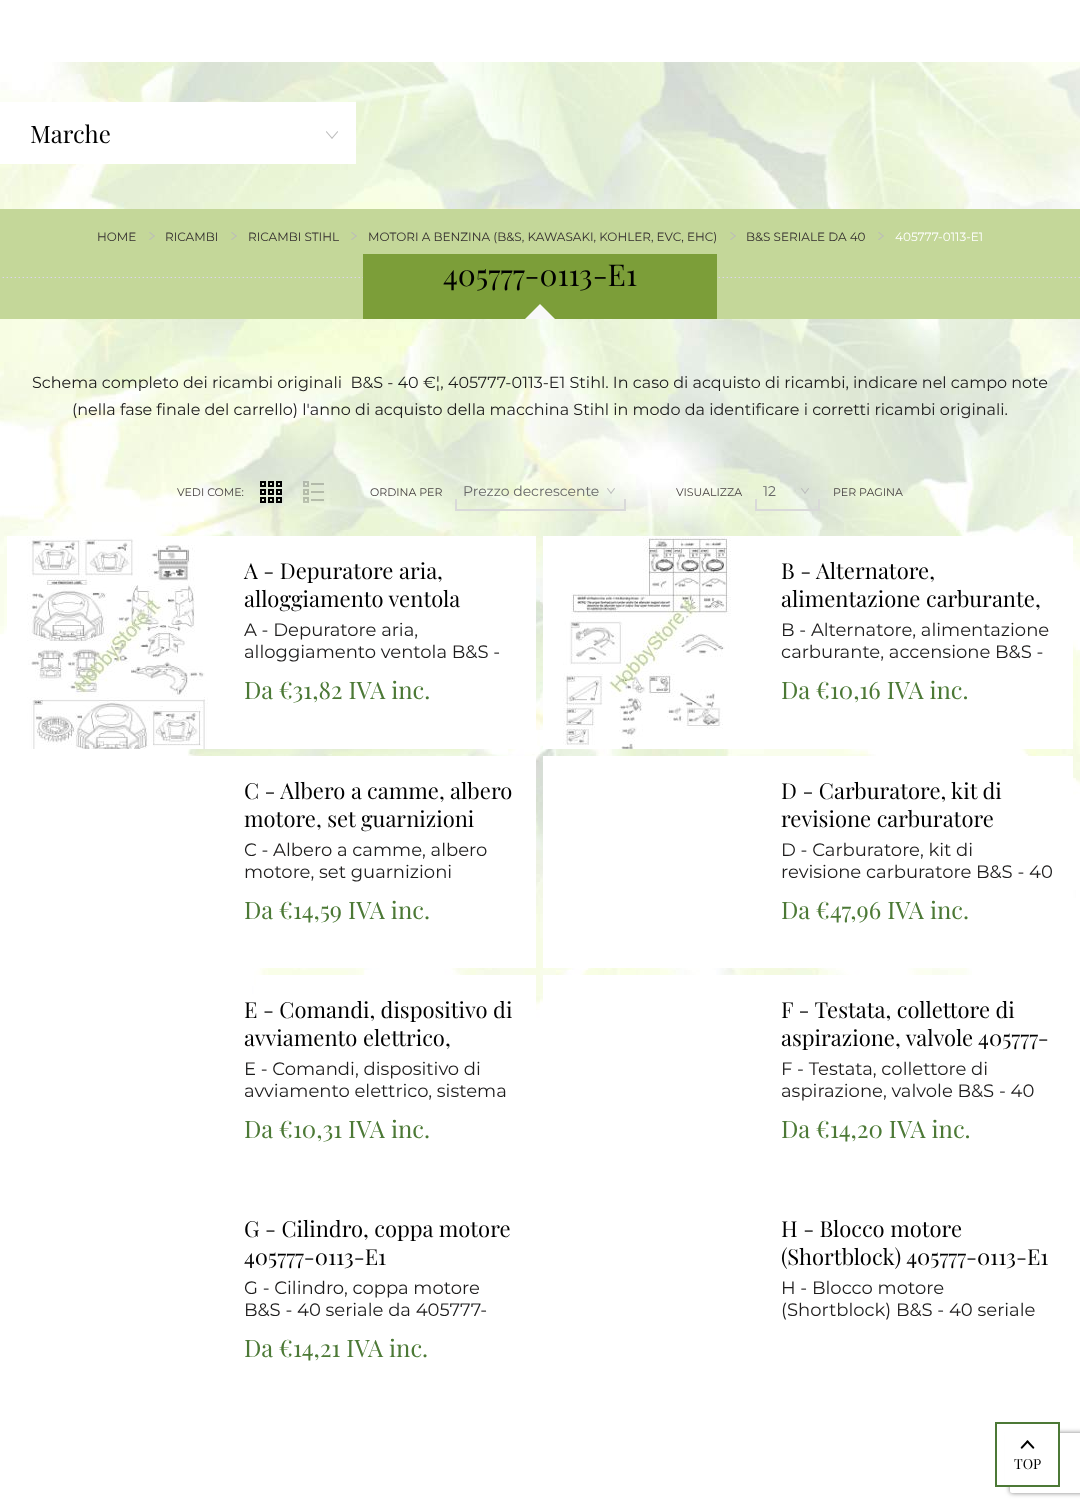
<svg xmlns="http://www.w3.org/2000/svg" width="1080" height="1507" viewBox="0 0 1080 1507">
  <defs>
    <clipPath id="clip1"><path d="M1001 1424H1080V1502H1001ZM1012 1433H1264C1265 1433 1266 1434 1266 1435V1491C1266 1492 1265 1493 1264 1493H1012C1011 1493 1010 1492 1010 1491V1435C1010 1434 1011 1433 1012 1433Z" clip-rule="evenodd"/></clipPath>
  </defs>
  <rect width="100%" height="100%" fill="rgb(255,255,255)"/>
  <image x="0" y="62" width="1080" height="1020" href="pic1.png"/>
  <rect x="0" y="102" width="356" height="62" fill="rgb(255,255,255)"/>
  <image x="326" y="131" width="12" height="8" href="pic2.png"/>
  <text x="30" y="143" font-family="Playfair Display" font-size="24" fill="rgb(0,0,0)">Marche</text>
  <rect x="0" y="209" width="1080" height="110" fill="rgb(196,215,153)"/>
  <text x="97" y="241" font-family="Montserrat" font-size="12" font-weight="100" fill="rgb(51,46,46)">HOME</text>
  <image x="149" y="232" width="6" height="8" href="pic3.png"/>
  <text x="165" y="241" font-family="Montserrat" font-size="12" font-weight="100" fill="rgb(51,46,46)">RICAMBI</text>
  <image x="231" y="232" width="6" height="8" href="pic3.png"/>
  <text x="248" y="241" font-family="Montserrat" font-size="12" font-weight="100" fill="rgb(51,46,46)">RICAMBI STIHL</text>
  <image x="351" y="232" width="6" height="8" href="pic3.png"/>
  <text x="368" y="241" font-family="Montserrat" font-size="12" font-weight="100" fill="rgb(51,46,46)">MOTORI A BENZINA (B&amp;S, KAWASAKI, KOHLER, EVC, EHC)</text>
  <image x="730" y="232" width="6" height="8" href="pic3.png"/>
  <text x="746" y="241" font-family="Montserrat" font-size="12" font-weight="100" fill="rgb(51,46,46)">B&amp;S SERIALE DA 40</text>
  <image x="878" y="232" width="6" height="8" href="pic3.png"/>
  <text x="895" y="241" font-family="Montserrat" font-size="12" font-weight="100" fill="rgb(255,255,255)">405777-0113-E1</text>
  <image x="2" y="277" width="1078" height="1" href="pic4.png"/>
  <rect x="363" y="254" width="354" height="65" fill="rgb(124,158,57)"/>
  <text x="443" y="286" font-family="Playfair Display" font-size="30" fill="rgb(0,0,0)">405777-0113-E1</text>
  <path d="M555 319H525L540 304Z" fill="rgb(248,248,248)"/>
  <g font-family="Montserrat" font-size="16" font-weight="100" fill="rgb(29,28,28)">
    <text x="32" y="388" xml:space="preserve">Schema completo dei ricambi originali  B&amp;S - 40 €¦, 405777-0113-E1 Stihl. In caso di acquisto di ricambi, indicare nel campo note</text>
    <text x="72" y="415">(nella fase finale del carrello) l'anno di acquisto della macchina Stihl in modo da identificare i corretti ricambi originali.</text>
  </g>
  <text x="177" y="496" font-family="Montserrat" font-size="11" font-weight="100" fill="rgb(72,66,66)">VEDI COME:</text>
  <image x="260" y="481" width="22" height="22" href="pic5.png"/>
  <image x="303" y="481" width="21" height="22" href="pic6.png"/>
  <text x="370" y="496" font-family="Montserrat" font-size="11" font-weight="100" fill="rgb(72,66,66)">ORDINA PER</text>
  <image x="607" y="488" width="8" height="6" href="pic7.png"/>
  <rect x="455" y="509" width="171" height="2" fill="rgb(217,217,217)"/>
  <text x="463" y="496" font-family="Montserrat" font-size="14" font-weight="100" fill="rgb(102,102,102)">Prezzo decrescente</text>
  <rect x="455" y="499" width="2" height="10" fill="rgb(217,217,217)"/>
  <rect x="624" y="499" width="2" height="10" fill="rgb(217,217,217)"/>
  <text x="676" y="496" font-family="Montserrat" font-size="11" font-weight="100" fill="rgb(72,66,66)">VISUALIZZA</text>
  <image x="801" y="488" width="8" height="6" href="pic8.png"/>
  <rect x="755" y="509" width="65" height="2" fill="rgb(217,217,217)"/>
  <text x="763" y="496" font-family="Montserrat" font-size="14" font-weight="100" fill="rgb(102,102,102)">12</text>
  <rect x="755" y="499" width="2" height="10" fill="rgb(217,217,217)"/>
  <rect x="818" y="499" width="2" height="10" fill="rgb(217,217,217)"/>
  <text x="833" y="496" font-family="Montserrat" font-size="11" font-weight="100" fill="rgb(72,66,66)">PER PAGINA</text>
  <rect x="7" y="536" width="529" height="213" fill="rgb(255,255,255)"/>
  <image x="27" y="537" width="181" height="212" href="pic9.png"/>
  <g font-family="Playfair Display" font-size="22" fill="rgb(0,0,0)">
    <text>
      <tspan x="244" y="579">A - Depuratore aria,</tspan>
      <tspan x="244" y="607">alloggiamento ventola</tspan>
    </text>
  </g>
  <g font-family="Montserrat" font-size="18" font-weight="100" fill="rgb(29,28,28)">
    <text>
      <tspan x="244" y="636">A - Depuratore aria,</tspan>
      <tspan x="244" y="658">alloggiamento ventola B&amp;S -</tspan>
    </text>
  </g>
  <text x="244" y="699" font-family="Playfair Display" font-size="24" fill="rgb(76,121,54)">Da €31,82 IVA inc.</text>
  <rect x="543" y="536" width="530" height="213" fill="rgb(255,255,255)"/>
  <image x="563" y="537" width="168" height="212" href="pic10.png"/>
  <g font-family="Playfair Display" font-size="22" fill="rgb(0,0,0)">
    <text>
      <tspan x="781" y="579">B - Alternatore,</tspan>
      <tspan x="781" y="607">alimentazione carburante,</tspan>
    </text>
  </g>
  <g font-family="Montserrat" font-size="18" font-weight="100" fill="rgb(29,28,28)">
    <text>
      <tspan x="781" y="636">B - Alternatore, alimentazione</tspan>
      <tspan x="781" y="658">carburante, accensione B&amp;S -</tspan>
    </text>
  </g>
  <text x="781" y="699" font-family="Playfair Display" font-size="24" fill="rgb(76,121,54)">Da €10,16 IVA inc.</text>
  <rect x="188" y="756" width="348" height="212" fill="rgb(255,255,255)"/>
  <g font-family="Playfair Display" font-size="22" fill="rgb(0,0,0)">
    <text>
      <tspan x="244" y="799">C - Albero a camme, albero</tspan>
      <tspan x="244" y="827">motore, set guarnizioni</tspan>
    </text>
  </g>
  <g font-family="Montserrat" font-size="18" font-weight="100" fill="rgb(29,28,28)">
    <text>
      <tspan x="244" y="856">C - Albero a camme, albero</tspan>
      <tspan x="244" y="878">motore, set guarnizioni</tspan>
    </text>
  </g>
  <text x="244" y="919" font-family="Playfair Display" font-size="24" fill="rgb(76,121,54)">Da €14,59 IVA inc.</text>
  <rect x="543" y="756" width="530" height="212" fill="rgb(255,255,255)"/>
  <g font-family="Playfair Display" font-size="22" fill="rgb(0,0,0)">
    <text>
      <tspan x="781" y="799">D - Carburatore, kit di</tspan>
      <tspan x="781" y="827">revisione carburatore</tspan>
    </text>
  </g>
  <g font-family="Montserrat" font-size="18" font-weight="100" fill="rgb(29,28,28)">
    <text>
      <tspan x="781" y="856">D - Carburatore, kit di</tspan>
      <tspan x="781" y="878">revisione carburatore B&amp;S - 40</tspan>
    </text>
  </g>
  <text x="781" y="919" font-family="Playfair Display" font-size="24" fill="rgb(76,121,54)">Da €47,96 IVA inc.</text>
  <rect x="256" y="975" width="280" height="107" fill="rgb(255,255,255)"/>
  <g font-family="Playfair Display" font-size="22" fill="rgb(0,0,0)">
    <text>
      <tspan x="244" y="1018">E - Comandi, dispositivo di</tspan>
      <tspan x="244" y="1046">avviamento elettrico,</tspan>
    </text>
  </g>
  <g font-family="Montserrat" font-size="18" font-weight="100" fill="rgb(29,28,28)">
    <text>
      <tspan x="244" y="1075">E - Comandi, dispositivo di</tspan>
      <tspan x="244" y="1097">avviamento elettrico, sistema</tspan>
    </text>
  </g>
  <text x="244" y="1138" font-family="Playfair Display" font-size="24" fill="rgb(76,121,54)">Da €10,31 IVA inc.</text>
  <rect x="543" y="975" width="429" height="107" fill="rgb(255,255,255)"/>
  <g font-family="Playfair Display" font-size="22" fill="rgb(0,0,0)">
    <text>
      <tspan x="781" y="1018">F - Testata, collettore di</tspan>
      <tspan x="781" y="1046">aspirazione, valvole 405777-</tspan>
    </text>
  </g>
  <g font-family="Montserrat" font-size="18" font-weight="100" fill="rgb(29,28,28)">
    <text>
      <tspan x="781" y="1075">F - Testata, collettore di</tspan>
      <tspan x="781" y="1097">aspirazione, valvole B&amp;S - 40</tspan>
    </text>
  </g>
  <text x="781" y="1138" font-family="Playfair Display" font-size="24" fill="rgb(76,121,54)">Da €14,20 IVA inc.</text>
  <g font-family="Playfair Display" font-size="22" fill="rgb(0,0,0)">
    <text>
      <tspan x="244" y="1237">G - Cilindro, coppa motore</tspan>
      <tspan x="244" y="1265">405777-0113-E1</tspan>
    </text>
  </g>
  <g font-family="Montserrat" font-size="18" font-weight="100" fill="rgb(29,28,28)">
    <text>
      <tspan x="244" y="1294">G - Cilindro, coppa motore</tspan>
      <tspan x="244" y="1316">B&amp;S - 40 seriale da 405777-</tspan>
    </text>
  </g>
  <text x="244" y="1357" font-family="Playfair Display" font-size="24" fill="rgb(76,121,54)">Da €14,21 IVA inc.</text>
  <g font-family="Playfair Display" font-size="22" fill="rgb(0,0,0)">
    <text>
      <tspan x="781" y="1237">H - Blocco motore</tspan>
      <tspan x="781" y="1265">(Shortblock) 405777-0113-E1</tspan>
    </text>
  </g>
  <g font-family="Montserrat" font-size="18" font-weight="100" fill="rgb(29,28,28)">
    <text>
      <tspan x="781" y="1294">H - Blocco motore</tspan>
      <tspan x="781" y="1316">(Shortblock) B&amp;S - 40 seriale</tspan>
    </text>
  </g>
  <g clip-path="url(#clip1)">
    <rect x="1010" y="1433" width="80" height="60" rx="2" fill="rgb(128,128,128)" filter="blur(2.5px)"/>
  </g>
  <rect x="1005" y="1428" width="53" height="57" fill="rgb(255,255,255)"/>
  <image x="1020" y="1440" width="15" height="9" href="pic11.png"/>
  <rect x="996" y="1423" width="63" height="63" fill="none" stroke="rgb(76,121,54)" stroke-width="2"/>
  <text x="1014" y="1469" font-family="Playfair Display" font-size="14" fill="rgb(0,0,0)">TOP</text>
</svg>
